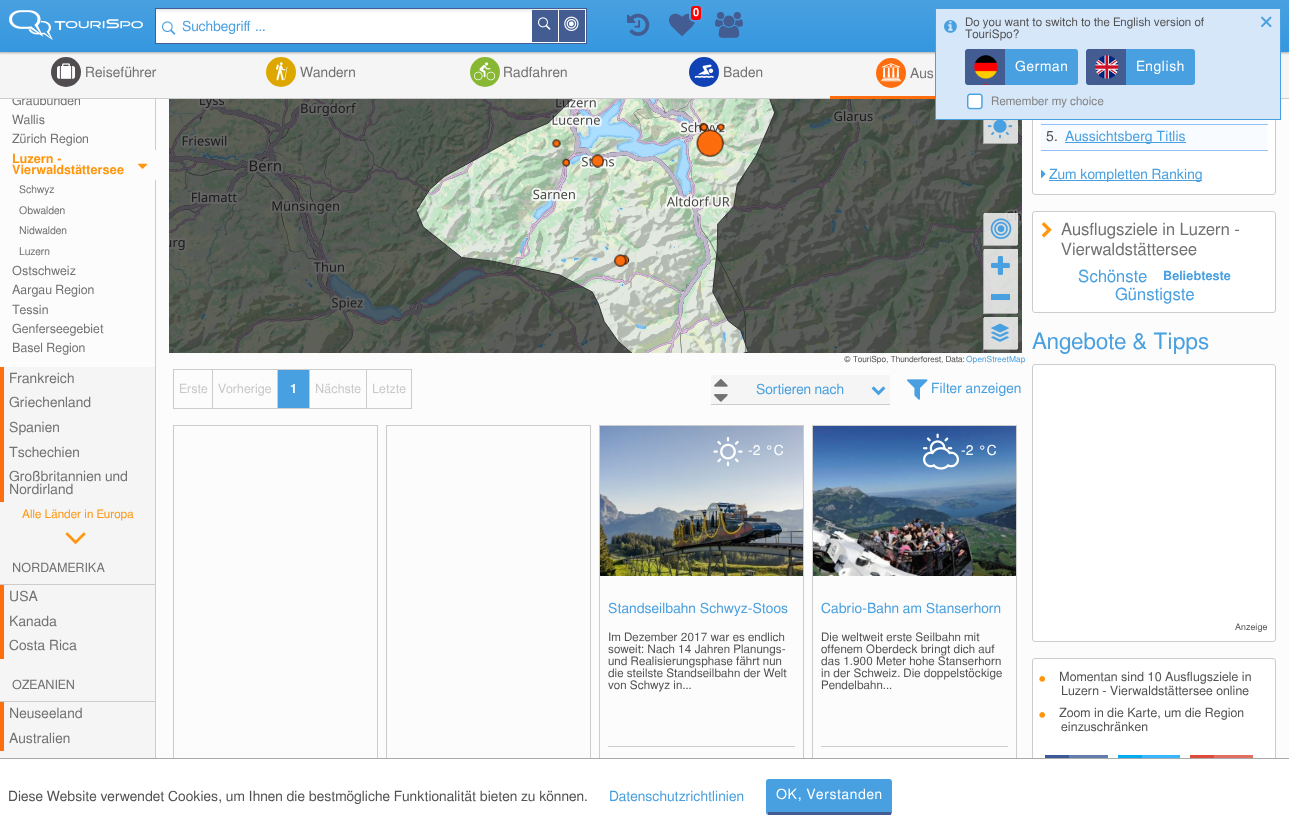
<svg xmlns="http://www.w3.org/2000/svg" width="1289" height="835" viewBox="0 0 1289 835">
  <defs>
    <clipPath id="clip1"><path d="M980 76H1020V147H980ZM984 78H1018V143H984Z" clip-rule="evenodd"/></clipPath>
    <linearGradient id="g1" gradientUnits="userSpaceOnUse" x1="645" y1="0" x2="645" y2="52"><stop offset="0" stop-color="rgb(73,160,224)"/><stop offset="1" stop-color="rgb(53,151,223)"/></linearGradient>
    <linearGradient id="g2" gradientUnits="userSpaceOnUse" x1="371" y1="9" x2="371" y2="43"><stop offset="0" stop-color="rgb(231,233,234)"/><stop offset="0.12" stop-color="rgb(255,255,255)"/></linearGradient>
    <clipPath id="clip2"><path d="M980 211H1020V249H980ZM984 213H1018V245H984Z" clip-rule="evenodd"/></clipPath>
    <clipPath id="clip3"><path d="M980 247H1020V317H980ZM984 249H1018V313H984Z" clip-rule="evenodd"/></clipPath>
    <clipPath id="clip4"><path d="M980 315H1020V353H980ZM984 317H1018V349H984Z" clip-rule="evenodd"/></clipPath>
  </defs>
  <rect width="100%" height="100%" fill="rgb(252,252,252)"/>
  <text x="12" y="105" font-family="FreeSans" font-size="12.6" letter-spacing="0.1" fill="rgb(114,114,114)">Graubünden</text>
  <image x="169" y="99" width="853" height="254" href="pic20.png"/>
  <g clip-path="url(#clip1)">
    <rect x="983" y="79" width="34" height="65" fill="rgb(170,170,170)" filter="blur(0.5px)"/>
  </g>
  <rect x="1032.5" y="-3.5" width="243" height="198" rx="2.5" fill="rgb(255,255,255)" stroke="rgb(204,204,204)"/>
  <rect x="0" y="52" width="1289" height="46" fill="rgb(245,245,245)"/>
  <rect x="-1" y="-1" width="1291" height="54" fill="rgb(170,170,170)" filter="blur(1px)"/>
  <rect x="0" y="0" width="1289" height="52" fill="url(#g1)"/>
  <image x="9" y="10" width="134" height="30" href="pic1.png"/>
  <rect x="156" y="9" width="430" height="34" fill="url(#g2)"/>
  <rect x="155.5" y="8.5" width="431" height="35" fill="none" stroke="rgb(67,92,145)"/>
  <image x="162" y="21" width="14" height="14" href="pic2.png"/>
  <text x="182" y="31" word-spacing="1" font-family="FreeSans" font-size="14" fill="rgb(73,160,224)">Suchbegriff ...</text>
  <rect x="532" y="10" width="26" height="32" fill="rgb(67,92,145)"/>
  <image x="538" y="17" width="13" height="13" href="pic3.png"/>
  <rect x="559" y="10" width="26" height="32" fill="rgb(67,92,145)"/>
  <image x="564" y="16" width="15" height="15" href="pic4.png"/>
  <image x="627" y="13" width="23" height="23" href="pic5.png"/>
  <image x="669" y="13" width="26" height="23" href="pic6.png"/>
  <rect x="690" y="5" width="12" height="16" rx="4" fill="rgb(255,0,0)" stroke="rgb(73,160,224)" stroke-width="2"/>
  <text x="693" y="16" font-family="FreeSans" font-size="11" font-weight="600" letter-spacing="0.15" fill="rgb(255,255,255)">0</text>
  <image x="715" y="11" width="28" height="27" href="pic7.png"/>
  <rect x="0" y="98" width="1289" height="1" fill="rgb(204,204,204)"/>
  <circle cx="66" cy="72" r="15" fill="rgb(80,76,80)"/>
  <image x="57" y="63" width="18" height="16" href="pic8.png"/>
  <text x="85" y="77" font-family="FreeSans" font-size="14" letter-spacing="0.15" fill="rgb(114,114,114)">Reiseführer</text>
  <circle cx="281" cy="72" r="15" fill="rgb(221,167,0)"/>
  <image x="276" y="62" width="12" height="19" href="pic9.png"/>
  <text x="300" y="77" font-family="FreeSans" font-size="14" letter-spacing="0.15" fill="rgb(114,114,114)">Wandern</text>
  <circle cx="485" cy="72" r="15" fill="rgb(136,183,51)"/>
  <image x="474" y="62" width="22" height="19" href="pic10.png"/>
  <text x="503" y="77" font-family="FreeSans" font-size="14" letter-spacing="0.15" fill="rgb(114,114,114)">Radfahren</text>
  <circle cx="704" cy="72" r="15" fill="rgb(16,66,181)"/>
  <image x="694" y="64" width="20" height="14" href="pic11.png"/>
  <text x="723" y="77" font-family="FreeSans" font-size="14" letter-spacing="0.15" fill="rgb(114,114,114)">Baden</text>
  <rect x="830" y="96" width="105" height="3" fill="rgb(255,110,14)"/>
  <circle cx="891" cy="73" r="15" fill="rgb(255,110,14)"/>
  <image x="881" y="63" width="21" height="19" href="pic12.png"/>
  <text x="910" y="78" font-family="FreeSans" font-size="14" letter-spacing="0.15" fill="rgb(114,114,114)">Aus</text>
  <rect x="935.5" y="8.5" width="345" height="111" fill="rgb(215,231,250)" stroke="rgb(73,160,224)"/>
  <image x="944" y="20" width="13" height="13" href="pic13.png"/>
  <g font-family="FreeSans" font-size="11.75" letter-spacing="0.15" fill="rgb(82,82,82)">
    <text>
      <tspan x="965" y="26">Do you want to switch to the English version of</tspan>
      <tspan x="965" y="38">TouriSpo?</tspan>
    </text>
  </g>
  <rect x="965" y="49" width="113" height="36" rx="3" fill="rgb(73,160,224)"/>
  <path d="M968 49H1005V85H968C966.5 85 965 83.5 965 82V52C965 50.5 966.5 49 968 49Z" fill="rgb(67,92,145)"/>
  <image x="973" y="55" width="25" height="30" href="pic14.png"/>
  <text x="1015" y="71" font-family="FreeSans" font-size="14" letter-spacing="0.75" fill="rgb(255,255,255)">German</text>
  <rect x="1086" y="49" width="109" height="36" rx="3" fill="rgb(73,160,224)"/>
  <path d="M1089 49H1126V85H1089C1087.5 85 1086 83.5 1086 82V52C1086 50.5 1087.5 49 1089 49Z" fill="rgb(67,92,145)"/>
  <image x="1095" y="49" width="24" height="30" href="pic15.png"/>
  <text x="1136" y="71" font-family="FreeSans" font-size="14" letter-spacing="0.75" fill="rgb(255,255,255)">English</text>
  <rect x="968" y="94" width="13" height="15" rx="2" fill="rgb(255,255,255)"/>
  <image x="967" y="93" width="16" height="17" href="pic16.png"/>
  <text x="991" y="105" font-family="FreeSans" font-size="11.75" letter-spacing="0.15" fill="rgb(130,130,130)">Remember my choice</text>
  <image x="1261" y="16" width="11" height="12" href="pic17.png"/>
  <rect x="0" y="367" width="155" height="392" fill="rgb(245,245,245)"/>
  <rect x="155" y="99" width="1" height="660" fill="rgb(204,204,204)"/>
  <rect x="173.5" y="425.5" width="204" height="401" fill="none" stroke="rgb(204,204,204)"/>
  <rect x="386.5" y="425.5" width="204" height="401" fill="none" stroke="rgb(204,204,204)"/>
  <rect x="599.5" y="425.5" width="204" height="401" fill="none" stroke="rgb(204,204,204)"/>
  <rect x="812.5" y="425.5" width="204" height="401" fill="none" stroke="rgb(204,204,204)"/>
  <rect x="1032.5" y="658.5" width="243" height="131" rx="2.5" fill="rgb(255,255,255)" stroke="rgb(204,204,204)"/>
  <rect x="1069" y="755" width="39" height="4" fill="rgb(98,124,173)"/>
  <rect x="1045" y="755" width="24" height="4" fill="rgb(59,89,152)"/>
  <rect x="1142" y="755" width="38" height="4" fill="rgb(55,183,255)"/>
  <rect x="1118" y="755" width="24" height="4" fill="rgb(0,172,238)"/>
  <rect x="1214" y="755" width="39" height="4" fill="rgb(225,111,100)"/>
  <rect x="1190" y="755" width="24" height="4" fill="rgb(221,75,57)"/>
  <rect x="0" y="758" width="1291" height="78" fill="rgb(170,170,170)" filter="blur(0.5px)"/>
  <rect x="0" y="759" width="1289" height="76" fill="rgb(255,255,255)"/>
  <text x="8" y="801" font-family="FreeSans" font-size="14" letter-spacing="0.15" fill="rgb(82,82,82)">Diese Website verwendet Cookies, um Ihnen die bestmögliche Funktionalität bieten zu können.</text>
  <text x="609" y="801" font-family="FreeSans" font-size="14" letter-spacing="0.15" fill="rgb(73,160,224)">Datenschutzrichtlinien</text>
  <rect x="766" y="779" width="126" height="36" rx="3" fill="rgb(73,160,224)"/>
  <rect x="768" y="812" width="123" height="3" fill="rgb(67,92,145)"/>
  <text x="776" y="799" font-family="FreeSans" font-size="14" letter-spacing="0.75" fill="rgb(255,255,255)">OK, Verstanden</text>
  <g font-family="FreeSans" font-size="12.6" letter-spacing="0.1" fill="rgb(114,114,114)">
    <text>
      <tspan x="12" y="124">Wallis</tspan>
      <tspan x="12" y="143">Zürich Region</tspan>
    </text>
  </g>
  <rect x="155" y="150" width="1" height="30" fill="rgb(252,252,252)"/>
  <g font-family="FreeSans" font-size="12.6" font-weight="600" letter-spacing="0.1" fill="rgb(255,150,14)">
    <text>
      <tspan x="12" y="163">Luzern -</tspan>
      <tspan x="12" y="174">Vierwaldstättersee</tspan>
    </text>
  </g>
  <image x="138" y="163" width="10" height="6" href="pic18.png"/>
  <g font-family="FreeSans" font-size="10.5" fill="rgb(114,114,114)">
    <text x="19" y="193">Schwyz</text>
    <text>
      <tspan x="19" y="214">Obwalden</tspan>
      <tspan x="19" y="234">Nidwalden</tspan>
    </text>
    <text x="19" y="255">Luzern</text>
  </g>
  <g font-family="FreeSans" font-size="12.6" letter-spacing="0.1" fill="rgb(114,114,114)">
    <text>
      <tspan x="12" y="275">Ostschweiz</tspan>
      <tspan x="12" y="294">Aargau Region</tspan>
      <tspan x="12" y="314">Tessin</tspan>
      <tspan x="12" y="333">Genferseegebiet</tspan>
      <tspan x="12" y="352">Basel Region</tspan>
    </text>
  </g>
  <rect x="0" y="367" width="4" height="135" fill="rgb(255,110,14)"/>
  <g font-family="FreeSans" font-size="14" letter-spacing="0.15" fill="rgb(114,114,114)">
    <text>
      <tspan x="9" y="383">Frankreich</tspan>
      <tspan x="9" y="407">Griechenland</tspan>
      <tspan x="9" y="432">Spanien</tspan>
      <tspan x="9" y="457">Tschechien</tspan>
      <tspan x="9" y="481">Großbritannien und</tspan>
      <tspan x="9" y="494">Nordirland</tspan>
    </text>
  </g>
  <text x="22" y="518" font-family="FreeSans" font-size="11.75" letter-spacing="0.15" fill="rgb(255,150,14)">Alle Länder in Europa</text>
  <image x="65" y="532" width="21" height="12" href="pic19.png"/>
  <rect x="0" y="584" width="155" height="1" fill="rgb(204,204,204)"/>
  <text x="12" y="572" font-family="FreeSans" font-size="12.6" letter-spacing="0.1" fill="rgb(114,114,114)">NORDAMERIKA</text>
  <rect x="0" y="585" width="4" height="74" fill="rgb(255,110,14)"/>
  <g font-family="FreeSans" font-size="14" letter-spacing="0.15" fill="rgb(114,114,114)">
    <text>
      <tspan x="9" y="601">USA</tspan>
      <tspan x="9" y="626">Kanada</tspan>
      <tspan x="9" y="650">Costa Rica</tspan>
    </text>
  </g>
  <rect x="0" y="701" width="155" height="1" fill="rgb(204,204,204)"/>
  <text x="12" y="689" font-family="FreeSans" font-size="12.6" letter-spacing="0.1" fill="rgb(114,114,114)">OZEANIEN</text>
  <rect x="0" y="702" width="4" height="49" fill="rgb(255,110,14)"/>
  <g font-family="FreeSans" font-size="14" letter-spacing="0.15" fill="rgb(114,114,114)">
    <text>
      <tspan x="9" y="718">Neuseeland</tspan>
      <tspan x="9" y="743">Australien</tspan>
    </text>
  </g>
  <rect x="984" y="120" width="34" height="23" fill="rgba(255,255,255,0.8)"/>
  <image x="987" y="120" width="26" height="19" href="pic21.png"/>
  <g clip-path="url(#clip2)">
    <rect x="983" y="214" width="34" height="32" fill="rgb(170,170,170)" filter="blur(0.5px)"/>
  </g>
  <rect x="984" y="213" width="34" height="32" fill="rgba(255,255,255,0.8)"/>
  <image x="990" y="218" width="22" height="21" href="pic22.png"/>
  <g clip-path="url(#clip3)">
    <rect x="983" y="250" width="34" height="64" fill="rgb(170,170,170)" filter="blur(0.5px)"/>
  </g>
  <rect x="984" y="249" width="34" height="64" fill="rgba(255,255,255,0.8)"/>
  <image x="991" y="256" width="19" height="19" href="pic23.png"/>
  <rect x="991" y="294" width="19" height="6" fill="rgb(73,160,224)"/>
  <g clip-path="url(#clip4)">
    <rect x="983" y="318" width="34" height="32" fill="rgb(170,170,170)" filter="blur(0.5px)"/>
  </g>
  <rect x="984" y="317" width="34" height="32" fill="rgba(255,255,255,0.8)"/>
  <image x="991" y="323" width="18" height="19" href="pic24.png"/>
  <text x="844" y="362" font-family="FreeSans" font-size="8.4" fill="rgb(82,82,82)">© TouriSpo, Thunderforest, Data:</text>
  <text x="966" y="362" font-family="FreeSans" font-size="8.4" letter-spacing="0.1" fill="rgb(73,160,224)">OpenStreetMap</text>
  <rect x="711" y="375" width="179" height="29" fill="rgb(245,245,245)"/>
  <rect x="711" y="404" width="179" height="1" fill="rgb(204,204,204)"/>
  <image x="871" y="386" width="15" height="10" href="pic25.png"/>
  <image x="714" y="379" width="14" height="8" href="pic26.png"/>
  <image x="714" y="394" width="14" height="8" href="pic27.png"/>
  <text x="756" y="394" font-family="FreeSans" font-size="14" fill="rgb(73,160,224)">Sortieren nach</text>
  <image x="907" y="379" width="21" height="21" href="pic28.png"/>
  <text x="931" y="393" font-family="FreeSans" font-size="14" letter-spacing="0.15" fill="rgb(73,160,224)">Filter anzeigen</text>
  <rect x="173.5" y="369.5" width="39" height="39" fill="none" stroke="rgb(204,204,204)"/>
  <text x="179" y="393" font-family="FreeSans" font-size="12.6" letter-spacing="0.15" fill="rgb(200,200,200)">Erste</text>
  <rect x="213" y="369" width="199" height="1" fill="rgb(204,204,204)"/>
  <rect x="277" y="369" width="1" height="40" fill="rgb(204,204,204)"/>
  <rect x="213" y="408" width="65" height="1" fill="rgb(204,204,204)"/>
  <text x="218" y="393" font-family="FreeSans" font-size="12.6" letter-spacing="0.15" fill="rgb(200,200,200)">Vorherige</text>
  <rect x="278" y="370" width="31" height="38" fill="rgb(73,160,224)"/>
  <rect x="309" y="369" width="1" height="40" fill="rgb(204,204,204)"/>
  <rect x="278" y="408" width="32" height="1" fill="rgb(204,204,204)"/>
  <text x="290" y="393" font-family="FreeSans" font-size="12.6" font-weight="600" letter-spacing="0.1" fill="rgb(255,255,255)">1</text>
  <rect x="366" y="369" width="1" height="40" fill="rgb(204,204,204)"/>
  <rect x="310" y="408" width="57" height="1" fill="rgb(204,204,204)"/>
  <text x="315" y="393" font-family="FreeSans" font-size="12.6" letter-spacing="0.15" fill="rgb(200,200,200)">Nächste</text>
  <rect x="411" y="369" width="1" height="40" fill="rgb(204,204,204)"/>
  <rect x="367" y="408" width="45" height="1" fill="rgb(204,204,204)"/>
  <text x="372" y="393" font-family="FreeSans" font-size="12.6" letter-spacing="0.15" fill="rgb(200,200,200)">Letzte</text>
  <image x="600" y="426" width="203" height="150" href="pic29.png"/>
  <image x="713" y="437" width="30" height="30" href="pic30.png"/>
  <g font-family="FreeSans" font-size="14" letter-spacing="0.15" fill="rgb(255,255,255)">
    <text x="748" y="455">-2</text>
    <text x="765" y="455">°C</text>
  </g>
  <text x="608" y="613" font-family="FreeSans" font-size="14" letter-spacing="0.15" fill="rgb(73,160,224)">Standseilbahn Schwyz-Stoos</text>
  <g font-family="FreeSans" font-size="11.75" letter-spacing="0.15" fill="rgb(82,82,82)">
    <text>
      <tspan x="608" y="641">Im Dezember 2017 war es endlich</tspan>
      <tspan x="608" y="653">soweit: Nach 14 Jahren Planungs-</tspan>
      <tspan x="608" y="665">und Realisierungsphase fährt nun</tspan>
      <tspan x="608" y="677">die steilste Standseilbahn der Welt</tspan>
      <tspan x="608" y="689">von Schwyz in...</tspan>
    </text>
  </g>
  <rect x="608" y="746" width="187" height="1" fill="rgb(204,204,204)"/>
  <image x="813" y="426" width="203" height="150" href="pic31.png"/>
  <image x="923" y="433" width="36" height="37" href="pic32.png"/>
  <g font-family="FreeSans" font-size="14" letter-spacing="0.15" fill="rgb(255,255,255)">
    <text x="961" y="455">-2</text>
    <text x="978" y="455">°C</text>
  </g>
  <text x="821" y="613" font-family="FreeSans" font-size="14" letter-spacing="0.15" fill="rgb(73,160,224)">Cabrio-Bahn am Stanserhorn</text>
  <g font-family="FreeSans" font-size="11.75" letter-spacing="0.15" fill="rgb(82,82,82)">
    <text>
      <tspan x="821" y="641">Die weltweit erste Seilbahn mit</tspan>
      <tspan x="821" y="653">offenem Oberdeck bringt dich auf</tspan>
      <tspan x="821" y="665">das 1.900 Meter hohe Stanserhorn</tspan>
      <tspan x="821" y="677">in der Schweiz. Die doppelstöckige</tspan>
      <tspan x="821" y="689">Pendelbahn...</tspan>
    </text>
  </g>
  <rect x="821" y="746" width="187" height="1" fill="rgb(204,204,204)"/>
  <rect x="1041" y="120" width="226" height="4" fill="rgb(248,251,255)"/>
  <rect x="1041" y="124" width="227" height="1" fill="rgb(149,191,245)"/>
  <rect x="1041" y="125" width="226" height="25" fill="rgb(248,251,255)"/>
  <text x="1046" y="141" font-family="FreeSans" font-size="14" letter-spacing="0.15" fill="rgb(82,82,82)">5.</text>
  <rect x="1041" y="150" width="227" height="1" fill="rgb(149,191,245)"/>
  <rect x="1065" y="142" width="121" height="1" fill="rgb(73,160,224)"/>
  <text x="1065" y="141" font-family="FreeSans" font-size="14" letter-spacing="0.15" fill="rgb(73,160,224)">Aussichtsberg Titlis</text>
  <image x="1041" y="170" width="5" height="8" href="pic33.png"/>
  <rect x="1049" y="180" width="153" height="1" fill="rgb(73,160,224)"/>
  <text x="1049" y="179" font-family="FreeSans" font-size="14" letter-spacing="0.15" fill="rgb(73,160,224)">Zum kompletten Ranking</text>
  <rect x="1032.5" y="211.5" width="243" height="101" rx="2.5" fill="rgb(255,255,255)" stroke="rgb(204,204,204)"/>
  <image x="1041" y="222" width="11" height="16" href="pic34.png"/>
  <g font-family="FreeSans" font-size="16.75" letter-spacing="0.15" fill="rgb(114,114,114)">
    <text>
      <tspan x="1061" y="235">Ausflugsziele in Luzern -</tspan>
      <tspan x="1061" y="255">Vierwaldstättersee</tspan>
    </text>
  </g>
  <text x="1078" y="282" font-family="FreeSans" font-size="16.75" letter-spacing="0.25" fill="rgb(73,160,224)">Schönste</text>
  <text x="1163" y="280" font-family="FreeSans" font-size="12.6" font-weight="600" letter-spacing="0.1" fill="rgb(73,160,224)">Beliebteste</text>
  <text x="1115" y="300" font-family="FreeSans" font-size="16.75" letter-spacing="0.25" fill="rgb(73,160,224)">Günstigste</text>
  <text x="1032" y="349" font-family="FreeSans" font-size="22.5" letter-spacing="0.15" fill="rgb(73,160,224)">Angebote &amp; Tipps</text>
  <rect x="1032.5" y="364.5" width="243" height="277" rx="2.5" fill="rgb(255,255,255)" stroke="rgb(204,204,204)"/>
  <text x="1235" y="630" font-family="FreeSans" font-size="9" letter-spacing="0.15" fill="rgb(82,82,82)">Anzeige</text>
  <text x="1039" y="683" font-family="FreeSans" font-size="16" letter-spacing="0.15" fill="rgb(255,150,14)">•</text>
  <g font-family="FreeSans" font-size="12.6" letter-spacing="0.15" fill="rgb(82,82,82)">
    <text x="1059" y="681">Momentan sind 10 Ausflugsziele in</text>
    <text x="1061" y="695">Luzern - Vierwaldstättersee online</text>
  </g>
  <text x="1039" y="719" font-family="FreeSans" font-size="16" letter-spacing="0.15" fill="rgb(255,150,14)">•</text>
  <g font-family="FreeSans" font-size="12.6" letter-spacing="0.15" fill="rgb(82,82,82)">
    <text x="1059" y="717">Zoom in die Karte, um die Region</text>
    <text x="1061" y="731">einzuschränken</text>
  </g>
</svg>
